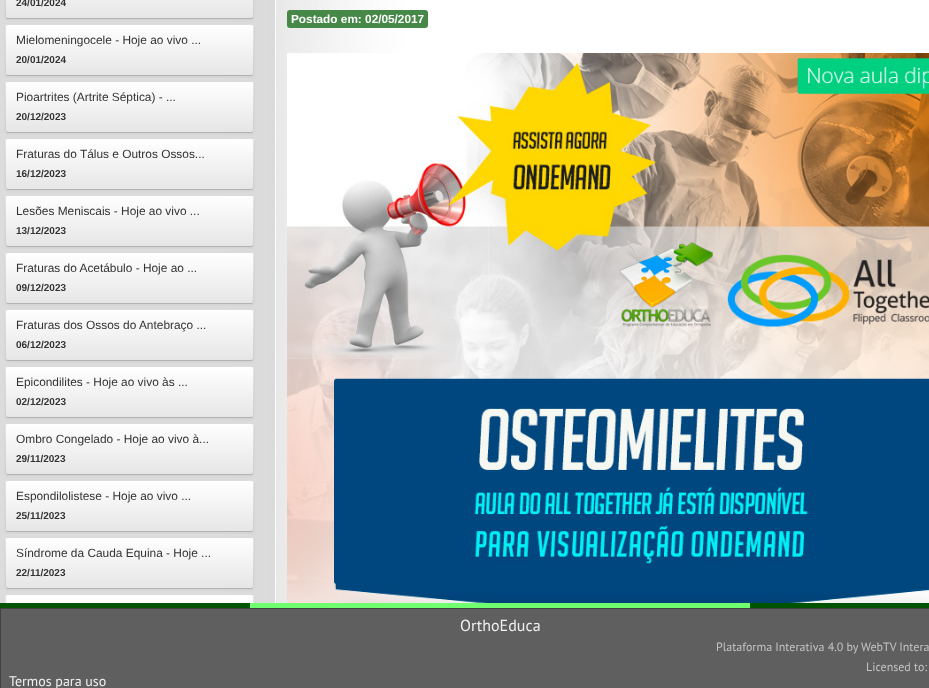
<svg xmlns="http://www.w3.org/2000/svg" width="929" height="688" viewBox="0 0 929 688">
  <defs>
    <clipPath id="clip1"><rect x="5" y="-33" width="249" height="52" rx="3"/></clipPath>
    <linearGradient id="g1" gradientUnits="userSpaceOnUse" x1="130" y1="-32" x2="130" y2="18"><stop offset="0" stop-color="rgb(255,255,255)"/><stop offset="1" stop-color="rgb(230,230,230)"/></linearGradient>
    <clipPath id="clip2"><rect x="5" y="24" width="249" height="52" rx="3"/></clipPath>
    <linearGradient id="g2" gradientUnits="userSpaceOnUse" x1="130" y1="25" x2="130" y2="75"><stop offset="0" stop-color="rgb(255,255,255)"/><stop offset="1" stop-color="rgb(230,230,230)"/></linearGradient>
    <clipPath id="clip3"><rect x="5" y="81" width="249" height="52" rx="3"/></clipPath>
    <linearGradient id="g3" gradientUnits="userSpaceOnUse" x1="130" y1="82" x2="130" y2="132"><stop offset="0" stop-color="rgb(255,255,255)"/><stop offset="1" stop-color="rgb(230,230,230)"/></linearGradient>
    <clipPath id="clip4"><rect x="5" y="138" width="249" height="52" rx="3"/></clipPath>
    <linearGradient id="g4" gradientUnits="userSpaceOnUse" x1="130" y1="139" x2="130" y2="189"><stop offset="0" stop-color="rgb(255,255,255)"/><stop offset="1" stop-color="rgb(230,230,230)"/></linearGradient>
    <clipPath id="clip5"><rect x="5" y="195" width="249" height="52" rx="3"/></clipPath>
    <linearGradient id="g5" gradientUnits="userSpaceOnUse" x1="130" y1="196" x2="130" y2="246"><stop offset="0" stop-color="rgb(255,255,255)"/><stop offset="1" stop-color="rgb(230,230,230)"/></linearGradient>
    <clipPath id="clip6"><rect x="5" y="252" width="249" height="52" rx="3"/></clipPath>
    <linearGradient id="g6" gradientUnits="userSpaceOnUse" x1="130" y1="253" x2="130" y2="303"><stop offset="0" stop-color="rgb(255,255,255)"/><stop offset="1" stop-color="rgb(230,230,230)"/></linearGradient>
    <clipPath id="clip7"><rect x="5" y="309" width="249" height="52" rx="3"/></clipPath>
    <linearGradient id="g7" gradientUnits="userSpaceOnUse" x1="130" y1="310" x2="130" y2="360"><stop offset="0" stop-color="rgb(255,255,255)"/><stop offset="1" stop-color="rgb(230,230,230)"/></linearGradient>
    <clipPath id="clip8"><rect x="5" y="366" width="249" height="52" rx="3"/></clipPath>
    <linearGradient id="g8" gradientUnits="userSpaceOnUse" x1="130" y1="367" x2="130" y2="417"><stop offset="0" stop-color="rgb(255,255,255)"/><stop offset="1" stop-color="rgb(230,230,230)"/></linearGradient>
    <clipPath id="clip9"><rect x="5" y="423" width="249" height="52" rx="3"/></clipPath>
    <linearGradient id="g9" gradientUnits="userSpaceOnUse" x1="130" y1="424" x2="130" y2="474"><stop offset="0" stop-color="rgb(255,255,255)"/><stop offset="1" stop-color="rgb(230,230,230)"/></linearGradient>
    <clipPath id="clip10"><rect x="5" y="480" width="249" height="52" rx="3"/></clipPath>
    <linearGradient id="g10" gradientUnits="userSpaceOnUse" x1="130" y1="481" x2="130" y2="531"><stop offset="0" stop-color="rgb(255,255,255)"/><stop offset="1" stop-color="rgb(230,230,230)"/></linearGradient>
    <clipPath id="clip11"><rect x="5" y="537" width="249" height="52" rx="3"/></clipPath>
    <linearGradient id="g11" gradientUnits="userSpaceOnUse" x1="130" y1="538" x2="130" y2="588"><stop offset="0" stop-color="rgb(255,255,255)"/><stop offset="1" stop-color="rgb(230,230,230)"/></linearGradient>
    <clipPath id="clip12"><rect x="5" y="594" width="249" height="52" rx="3"/></clipPath>
    <linearGradient id="g12" gradientUnits="userSpaceOnUse" x1="130" y1="595" x2="130" y2="645"><stop offset="0" stop-color="rgb(255,255,255)"/><stop offset="1" stop-color="rgb(230,230,230)"/></linearGradient>
    <clipPath id="clip13"><rect x="0" y="0" width="273" height="603"/></clipPath>
  </defs>
  <rect width="100%" height="100%" fill="rgb(255,255,255)"/>
  <image x="0" y="0" width="929" height="603" href="pic1.png"/>
  <rect x="5" y="-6" width="249" height="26" rx="3" fill="rgba(0,0,0,0.05)" filter="blur(1px)"/>
  <g clip-path="url(#clip1)">
    <rect x="5" y="0" width="249" height="18" fill="url(#g1)"/>
  </g>
  <path d="M253 18L251 18.5H8L6 18" fill="none" stroke="rgb(179,179,179)"/>
  <path d="M6 18L5.5 16V-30L6-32L8-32.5H251L253-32L253.5-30V16L253 18" fill="none" stroke="rgba(0,0,0,0.1)"/>
  <text x="16" y="6" font-family="Liberation Sans" font-size="10" font-weight="bold" fill="rgb(51,51,51)">24/01/2024</text>
  <rect x="5" y="25" width="249" height="52" rx="3" fill="rgba(0,0,0,0.05)" filter="blur(1px)"/>
  <rect x="5" y="24" width="249" height="52" rx="3" fill="rgb(245,245,245)"/>
  <g clip-path="url(#clip2)">
    <rect x="5" y="25" width="249" height="50" fill="url(#g2)"/>
  </g>
  <path d="M253 75L251 75.5H8L6 75" fill="none" stroke="rgb(179,179,179)"/>
  <path d="M6 75L5.5 73V27L6 25L8 24.5H251L253 25L253.5 27V73L253 75" fill="none" stroke="rgba(0,0,0,0.1)"/>
  <text x="16" y="44" font-family="Liberation Sans" font-size="11.9" fill="rgb(51,51,51)">Mielomeningocele - Hoje ao vivo ...</text>
  <text x="16" y="63" font-family="Liberation Sans" font-size="10" font-weight="bold" fill="rgb(51,51,51)">20/01/2024</text>
  <rect x="5" y="82" width="249" height="52" rx="3" fill="rgba(0,0,0,0.05)" filter="blur(1px)"/>
  <rect x="5" y="81" width="249" height="52" rx="3" fill="rgb(245,245,245)"/>
  <g clip-path="url(#clip3)">
    <rect x="5" y="82" width="249" height="50" fill="url(#g3)"/>
  </g>
  <path d="M253 132L251 132.5H8L6 132" fill="none" stroke="rgb(179,179,179)"/>
  <path d="M6 132L5.5 130V84L6 82L8 81.5H251L253 82L253.5 84V130L253 132" fill="none" stroke="rgba(0,0,0,0.1)"/>
  <text x="16" y="101" font-family="Liberation Sans" font-size="11.9" fill="rgb(51,51,51)">Pioartrites (Artrite Séptica) - ...</text>
  <text x="16" y="120" font-family="Liberation Sans" font-size="10" font-weight="bold" fill="rgb(51,51,51)">20/12/2023</text>
  <rect x="5" y="139" width="249" height="52" rx="3" fill="rgba(0,0,0,0.05)" filter="blur(1px)"/>
  <rect x="5" y="138" width="249" height="52" rx="3" fill="rgb(245,245,245)"/>
  <g clip-path="url(#clip4)">
    <rect x="5" y="139" width="249" height="50" fill="url(#g4)"/>
  </g>
  <path d="M253 189L251 189.5H8L6 189" fill="none" stroke="rgb(179,179,179)"/>
  <path d="M6 189L5.5 187V141L6 139L8 138.5H251L253 139L253.5 141V187L253 189" fill="none" stroke="rgba(0,0,0,0.1)"/>
  <text x="16" y="158" font-family="Liberation Sans" font-size="11.9" fill="rgb(51,51,51)">Fraturas do Tálus e Outros Ossos...</text>
  <text x="16" y="177" font-family="Liberation Sans" font-size="10" font-weight="bold" fill="rgb(51,51,51)">16/12/2023</text>
  <rect x="5" y="196" width="249" height="52" rx="3" fill="rgba(0,0,0,0.05)" filter="blur(1px)"/>
  <rect x="5" y="195" width="249" height="52" rx="3" fill="rgb(245,245,245)"/>
  <g clip-path="url(#clip5)">
    <rect x="5" y="196" width="249" height="50" fill="url(#g5)"/>
  </g>
  <path d="M253 246L251 246.5H8L6 246" fill="none" stroke="rgb(179,179,179)"/>
  <path d="M6 246L5.5 244V198L6 196L8 195.5H251L253 196L253.5 198V244L253 246" fill="none" stroke="rgba(0,0,0,0.1)"/>
  <text x="16" y="215" font-family="Liberation Sans" font-size="11.9" fill="rgb(51,51,51)">Lesões Meniscais - Hoje ao vivo ...</text>
  <text x="16" y="234" font-family="Liberation Sans" font-size="10" font-weight="bold" fill="rgb(51,51,51)">13/12/2023</text>
  <rect x="5" y="253" width="249" height="52" rx="3" fill="rgba(0,0,0,0.05)" filter="blur(1px)"/>
  <rect x="5" y="252" width="249" height="52" rx="3" fill="rgb(245,245,245)"/>
  <g clip-path="url(#clip6)">
    <rect x="5" y="253" width="249" height="50" fill="url(#g6)"/>
  </g>
  <path d="M253 303L251 303.5H8L6 303" fill="none" stroke="rgb(179,179,179)"/>
  <path d="M6 303L5.5 301V255L6 253L8 252.5H251L253 253L253.5 255V301L253 303" fill="none" stroke="rgba(0,0,0,0.1)"/>
  <text x="16" y="272" font-family="Liberation Sans" font-size="11.9" fill="rgb(51,51,51)">Fraturas do Acetábulo - Hoje ao ...</text>
  <text x="16" y="291" font-family="Liberation Sans" font-size="10" font-weight="bold" fill="rgb(51,51,51)">09/12/2023</text>
  <rect x="5" y="310" width="249" height="52" rx="3" fill="rgba(0,0,0,0.05)" filter="blur(1px)"/>
  <rect x="5" y="309" width="249" height="52" rx="3" fill="rgb(245,245,245)"/>
  <g clip-path="url(#clip7)">
    <rect x="5" y="310" width="249" height="50" fill="url(#g7)"/>
  </g>
  <path d="M253 360L251 360.5H8L6 360" fill="none" stroke="rgb(179,179,179)"/>
  <path d="M6 360L5.5 358V312L6 310L8 309.5H251L253 310L253.5 312V358L253 360" fill="none" stroke="rgba(0,0,0,0.1)"/>
  <text x="16" y="329" font-family="Liberation Sans" font-size="11.9" fill="rgb(51,51,51)">Fraturas dos Ossos do Antebraço ...</text>
  <text x="16" y="348" font-family="Liberation Sans" font-size="10" font-weight="bold" fill="rgb(51,51,51)">06/12/2023</text>
  <rect x="5" y="367" width="249" height="52" rx="3" fill="rgba(0,0,0,0.05)" filter="blur(1px)"/>
  <rect x="5" y="366" width="249" height="52" rx="3" fill="rgb(245,245,245)"/>
  <g clip-path="url(#clip8)">
    <rect x="5" y="367" width="249" height="50" fill="url(#g8)"/>
  </g>
  <path d="M253 417L251 417.5H8L6 417" fill="none" stroke="rgb(179,179,179)"/>
  <path d="M6 417L5.5 415V369L6 367L8 366.5H251L253 367L253.5 369V415L253 417" fill="none" stroke="rgba(0,0,0,0.1)"/>
  <text x="16" y="386" font-family="Liberation Sans" font-size="11.9" fill="rgb(51,51,51)">Epicondilites - Hoje ao vivo às ...</text>
  <text x="16" y="405" font-family="Liberation Sans" font-size="10" font-weight="bold" fill="rgb(51,51,51)">02/12/2023</text>
  <rect x="5" y="424" width="249" height="52" rx="3" fill="rgba(0,0,0,0.05)" filter="blur(1px)"/>
  <rect x="5" y="423" width="249" height="52" rx="3" fill="rgb(245,245,245)"/>
  <g clip-path="url(#clip9)">
    <rect x="5" y="424" width="249" height="50" fill="url(#g9)"/>
  </g>
  <path d="M253 474L251 474.5H8L6 474" fill="none" stroke="rgb(179,179,179)"/>
  <path d="M6 474L5.5 472V426L6 424L8 423.5H251L253 424L253.5 426V472L253 474" fill="none" stroke="rgba(0,0,0,0.1)"/>
  <text x="16" y="443" font-family="Liberation Sans" font-size="11.9" fill="rgb(51,51,51)">Ombro Congelado - Hoje ao vivo à...</text>
  <text x="16" y="462" font-family="Liberation Sans" font-size="10" font-weight="bold" fill="rgb(51,51,51)">29/11/2023</text>
  <rect x="5" y="481" width="249" height="52" rx="3" fill="rgba(0,0,0,0.05)" filter="blur(1px)"/>
  <rect x="5" y="480" width="249" height="52" rx="3" fill="rgb(245,245,245)"/>
  <g clip-path="url(#clip10)">
    <rect x="5" y="481" width="249" height="50" fill="url(#g10)"/>
  </g>
  <path d="M253 531L251 531.5H8L6 531" fill="none" stroke="rgb(179,179,179)"/>
  <path d="M6 531L5.5 529V483L6 481L8 480.5H251L253 481L253.5 483V529L253 531" fill="none" stroke="rgba(0,0,0,0.1)"/>
  <text x="16" y="500" font-family="Liberation Sans" font-size="11.9" fill="rgb(51,51,51)">Espondilolistese - Hoje ao vivo ...</text>
  <text x="16" y="519" font-family="Liberation Sans" font-size="10" font-weight="bold" fill="rgb(51,51,51)">25/11/2023</text>
  <rect x="5" y="538" width="249" height="52" rx="3" fill="rgba(0,0,0,0.05)" filter="blur(1px)"/>
  <rect x="5" y="537" width="249" height="52" rx="3" fill="rgb(245,245,245)"/>
  <g clip-path="url(#clip11)">
    <rect x="5" y="538" width="249" height="50" fill="url(#g11)"/>
  </g>
  <path d="M253 588L251 588.5H8L6 588" fill="none" stroke="rgb(179,179,179)"/>
  <path d="M6 588L5.5 586V540L6 538L8 537.5H251L253 538L253.5 540V586L253 588" fill="none" stroke="rgba(0,0,0,0.1)"/>
  <text x="16" y="557" font-family="Liberation Sans" font-size="11.9" fill="rgb(51,51,51)">Síndrome da Cauda Equina - Hoje ...</text>
  <text x="16" y="576" font-family="Liberation Sans" font-size="10" font-weight="bold" fill="rgb(51,51,51)">22/11/2023</text>
  <path d="M8 594H251C252.5 594 254 595.5 254 597V603H5V597C5 595.5 6.5 594 8 594Z" fill="rgb(245,245,245)"/>
  <g clip-path="url(#clip12)">
    <rect x="5" y="595" width="249" height="8" fill="url(#g12)"/>
  </g>
  <g clip-path="url(#clip13)">
    <path d="M6 645L5.5 643V597L6 595L8 594.5H251L253 595L253.5 597V643L253 645" fill="none" stroke="rgba(0,0,0,0.1)"/>
  </g>
  <rect x="287" y="10" width="141" height="18" rx="3" fill="rgb(70,136,71)"/>
  <text x="291" y="23" font-family="Liberation Sans" font-size="11.8" font-weight="bold" fill="rgb(255,255,255)">Postado em: 02/05/2017</text>
  <image x="287" y="53" width="642" height="550" href="pic2.png"/>
  <rect x="0" y="603" width="250" height="5" fill="rgb(0,83,0)"/>
  <rect x="250" y="603" width="500" height="5" fill="rgb(111,255,111)"/>
  <rect x="750" y="603" width="179" height="5" fill="rgb(0,83,0)"/>
  <rect x="0.5" y="608.5" width="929" height="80" fill="rgb(95,95,95)" stroke="rgb(65,65,65)"/>
  <text x="460" y="631" font-family="PT Sans" font-size="16" fill="rgb(240,240,240)">OrthoEduca</text>
  <g font-family="PT Sans" font-size="12" fill="rgb(195,195,195)">
    <text x="716" y="651">Plataforma Interativa 4.0 by WebTV Intera</text>
    <text x="866" y="671">Licensed to:</text>
  </g>
  <text x="9" y="686" font-family="PT Sans" font-size="14" fill="rgb(240,240,240)">Termos para uso</text>
</svg>
